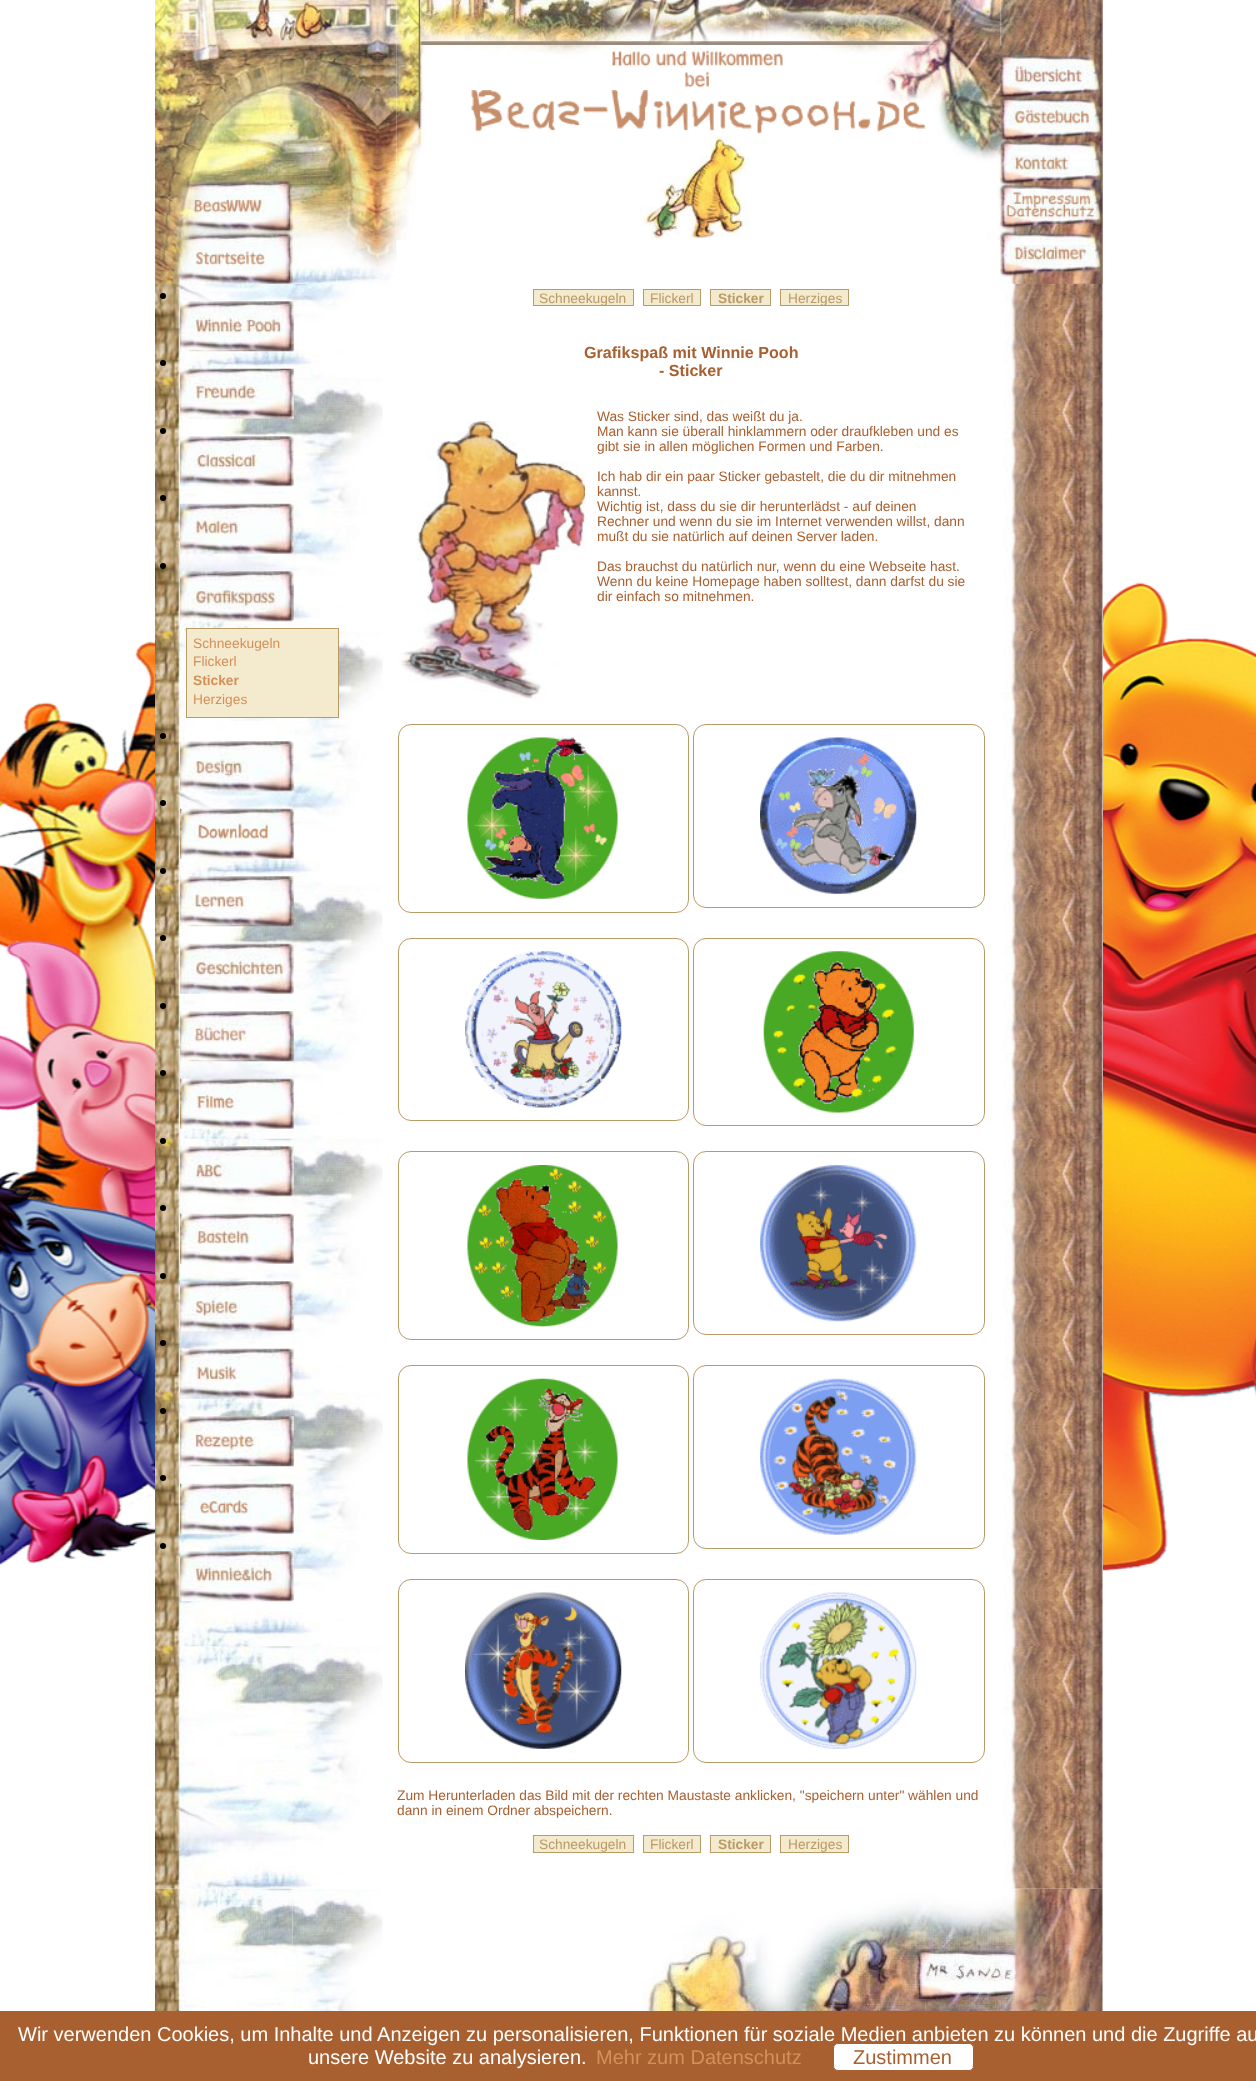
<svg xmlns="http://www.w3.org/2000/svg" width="1256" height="2081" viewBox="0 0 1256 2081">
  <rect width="100%" height="100%" fill="rgb(255,255,255)"/>
  <image x="0" y="582" width="1256" height="990" href="pic1.png"/>
  <rect x="155" y="607" width="948" height="965" fill="rgb(255,255,255)"/>
  <image x="155" y="0" width="948" height="1889" href="pic13.png"/>
  <image x="155" y="0" width="135" height="45" href="pic2.png"/>
  <image x="290" y="0" width="107" height="45" href="pic3.png"/>
  <image x="396" y="0" width="604" height="45" href="pic4.png"/>
  <image x="1000" y="0" width="103" height="45" href="pic5.png"/>
  <image x="155" y="45" width="135" height="239" href="pic6.png"/>
  <image x="290" y="45" width="107" height="239" href="pic7.png"/>
  <image x="396" y="45" width="604" height="195" href="pic8.png"/>
  <image x="612" y="50" width="171" height="38" href="pic9.png"/>
  <image x="471" y="90" width="455" height="44" href="pic10.png"/>
  <image x="640" y="136" width="110" height="104" href="pic11.png"/>
  <image x="1000" y="45" width="103" height="239" href="pic12.png"/>
  <circle cx="163" cy="296" r="3" fill="rgb(0,0,0)"/>
  <image x="180" y="301" width="114" height="51" href="pic14.png"/>
  <circle cx="163" cy="363" r="3" fill="rgb(0,0,0)"/>
  <image x="180" y="368" width="114" height="51" href="pic15.png"/>
  <circle cx="163" cy="431" r="3" fill="rgb(0,0,0)"/>
  <image x="180" y="436" width="114" height="51" href="pic16.png"/>
  <circle cx="163" cy="498" r="3" fill="rgb(0,0,0)"/>
  <image x="180" y="503" width="114" height="51" href="pic17.png"/>
  <circle cx="163" cy="566" r="3" fill="rgb(0,0,0)"/>
  <image x="180" y="571" width="114" height="51" href="pic18.png"/>
  <rect x="186.5" y="628.5" width="152" height="89" fill="rgb(244,234,206)" stroke="rgb(185,155,103)"/>
  <g font-family="Liberation Sans" font-size="13.75" fill="rgb(212,144,90)">
    <text>
      <tspan x="193" y="648">Schneekugeln</tspan>
      <tspan x="193" y="666">Flickerl</tspan>
    </text>
  </g>
  <text x="193" y="685" font-family="Liberation Sans" font-size="13.75" font-weight="bold" fill="rgb(212,144,90)">Sticker</text>
  <text x="193" y="704" font-family="Liberation Sans" font-size="13.75" fill="rgb(212,144,90)">Herziges</text>
  <circle cx="163" cy="736" r="3" fill="rgb(0,0,0)"/>
  <image x="180" y="741" width="114" height="51" href="pic19.png"/>
  <circle cx="163" cy="803" r="3" fill="rgb(0,0,0)"/>
  <image x="180" y="808" width="114" height="51" href="pic20.png"/>
  <circle cx="163" cy="871" r="3" fill="rgb(0,0,0)"/>
  <image x="180" y="876" width="114" height="51" href="pic21.png"/>
  <circle cx="163" cy="938" r="3" fill="rgb(0,0,0)"/>
  <image x="180" y="943" width="114" height="51" href="pic22.png"/>
  <circle cx="163" cy="1006" r="3" fill="rgb(0,0,0)"/>
  <image x="180" y="1011" width="114" height="51" href="pic23.png"/>
  <circle cx="163" cy="1073" r="3" fill="rgb(0,0,0)"/>
  <image x="180" y="1078" width="114" height="51" href="pic24.png"/>
  <circle cx="163" cy="1141" r="3" fill="rgb(0,0,0)"/>
  <image x="180" y="1146" width="114" height="51" href="pic25.png"/>
  <circle cx="163" cy="1208" r="3" fill="rgb(0,0,0)"/>
  <image x="180" y="1213" width="114" height="51" href="pic26.png"/>
  <circle cx="163" cy="1276" r="3" fill="rgb(0,0,0)"/>
  <image x="180" y="1281" width="114" height="51" href="pic27.png"/>
  <circle cx="163" cy="1343" r="3" fill="rgb(0,0,0)"/>
  <image x="180" y="1348" width="114" height="51" href="pic28.png"/>
  <circle cx="163" cy="1411" r="3" fill="rgb(0,0,0)"/>
  <image x="180" y="1416" width="114" height="51" href="pic29.png"/>
  <circle cx="163" cy="1478" r="3" fill="rgb(0,0,0)"/>
  <image x="180" y="1483" width="114" height="51" href="pic30.png"/>
  <circle cx="163" cy="1546" r="3" fill="rgb(0,0,0)"/>
  <image x="180" y="1551" width="114" height="51" href="pic31.png"/>
  <rect x="533.5" y="289.5" width="100" height="16" fill="rgb(244,234,206)" stroke="rgb(185,155,103)"/>
  <text x="539" y="303" font-family="Liberation Sans" font-size="13.75" fill="rgb(185,155,103)">Schneekugeln</text>
  <rect x="643.5" y="289.5" width="57" height="16" fill="rgb(244,234,206)" stroke="rgb(185,155,103)"/>
  <text x="650" y="303" font-family="Liberation Sans" font-size="13.75" fill="rgb(185,155,103)">Flickerl</text>
  <rect x="710.5" y="289.5" width="60" height="16" fill="rgb(244,234,206)" stroke="rgb(185,155,103)"/>
  <text x="718" y="303" font-family="Liberation Sans" font-size="13.75" font-weight="bold" fill="rgb(185,155,103)">Sticker</text>
  <rect x="780.5" y="289.5" width="68" height="16" fill="rgb(244,234,206)" stroke="rgb(185,155,103)"/>
  <text x="788" y="303" font-family="Liberation Sans" font-size="13.75" fill="rgb(185,155,103)">Herziges</text>
  <g font-family="Liberation Sans" font-size="16.1" font-weight="bold" fill="rgb(169,96,49)">
    <text x="584" y="358">Grafikspaß mit Winnie Pooh</text>
    <text x="659" y="376">- Sticker</text>
  </g>
  <image x="398" y="421" width="187" height="278" href="pic32.png"/>
  <g font-family="Liberation Sans" font-size="13.75" fill="rgb(169,96,49)">
    <text>
      <tspan x="597" y="421">Was Sticker sind, das weißt du ja.</tspan>
      <tspan x="597" y="436">Man kann sie überall hinklammern oder draufkleben und es</tspan>
      <tspan x="597" y="451">gibt sie in allen möglichen Formen und Farben.</tspan>
    </text>
    <text>
      <tspan x="597" y="481">Ich hab dir ein paar Sticker gebastelt, die du dir mitnehmen</tspan>
      <tspan x="597" y="496">kannst.</tspan>
      <tspan x="597" y="511">Wichtig ist, dass du sie dir herunterlädst - auf deinen</tspan>
      <tspan x="597" y="526">Rechner und wenn du sie im Internet verwenden willst, dann</tspan>
      <tspan x="597" y="541">mußt du sie natürlich auf deinen Server laden.</tspan>
    </text>
    <text>
      <tspan x="597" y="571">Das brauchst du natürlich nur, wenn du eine Webseite hast.</tspan>
      <tspan x="597" y="586">Wenn du keine Homepage haben solltest, dann darfst du sie</tspan>
      <tspan x="597" y="601">dir einfach so mitnehmen.</tspan>
    </text>
  </g>
  <rect x="398.5" y="724.5" width="290" height="188" rx="12.5" fill="none" stroke="rgb(185,155,103)"/>
  <image x="467" y="737" width="151" height="162" href="pic33.png"/>
  <rect x="693.5" y="724.5" width="291" height="183" rx="12.5" fill="none" stroke="rgb(185,155,103)"/>
  <image x="760" y="737" width="157" height="157" href="pic34.png"/>
  <rect x="398.5" y="938.5" width="290" height="182" rx="12.5" fill="none" stroke="rgb(185,155,103)"/>
  <image x="465" y="951" width="157" height="157" href="pic35.png"/>
  <rect x="693.5" y="938.5" width="291" height="187" rx="12.5" fill="none" stroke="rgb(185,155,103)"/>
  <image x="763" y="951" width="151" height="162" href="pic36.png"/>
  <rect x="398.5" y="1151.5" width="290" height="188" rx="12.5" fill="none" stroke="rgb(185,155,103)"/>
  <image x="467" y="1165" width="151" height="162" href="pic37.png"/>
  <rect x="693.5" y="1151.5" width="291" height="183" rx="12.5" fill="none" stroke="rgb(185,155,103)"/>
  <image x="760" y="1165" width="157" height="157" href="pic38.png"/>
  <rect x="398.5" y="1365.5" width="290" height="188" rx="12.5" fill="none" stroke="rgb(185,155,103)"/>
  <image x="467" y="1378" width="151" height="162" href="pic39.png"/>
  <rect x="693.5" y="1365.5" width="291" height="183" rx="12.5" fill="none" stroke="rgb(185,155,103)"/>
  <image x="760" y="1378" width="157" height="157" href="pic40.png"/>
  <rect x="398.5" y="1579.5" width="290" height="183" rx="12.5" fill="none" stroke="rgb(185,155,103)"/>
  <image x="465" y="1592" width="157" height="157" href="pic41.png"/>
  <rect x="693.5" y="1579.5" width="291" height="183" rx="12.5" fill="none" stroke="rgb(185,155,103)"/>
  <image x="760" y="1592" width="157" height="157" href="pic42.png"/>
  <g font-family="Liberation Sans" font-size="13.75" fill="rgb(169,96,49)">
    <text>
      <tspan x="397" y="1800">Zum Herunterladen das Bild mit der rechten Maustaste anklicken, "speichern unter" wählen und</tspan>
      <tspan x="397" y="1815">dann in einem Ordner abspeichern.</tspan>
    </text>
  </g>
  <rect x="533.5" y="1835.5" width="100" height="17" fill="rgb(244,234,206)" stroke="rgb(185,155,103)"/>
  <text x="539" y="1849" font-family="Liberation Sans" font-size="13.75" fill="rgb(185,155,103)">Schneekugeln</text>
  <rect x="643.5" y="1835.5" width="57" height="17" fill="rgb(244,234,206)" stroke="rgb(185,155,103)"/>
  <text x="650" y="1849" font-family="Liberation Sans" font-size="13.75" fill="rgb(185,155,103)">Flickerl</text>
  <rect x="710.5" y="1835.5" width="60" height="17" fill="rgb(244,234,206)" stroke="rgb(185,155,103)"/>
  <text x="718" y="1849" font-family="Liberation Sans" font-size="13.75" font-weight="bold" fill="rgb(185,155,103)">Sticker</text>
  <rect x="780.5" y="1835.5" width="68" height="17" fill="rgb(244,234,206)" stroke="rgb(185,155,103)"/>
  <text x="788" y="1849" font-family="Liberation Sans" font-size="13.75" fill="rgb(185,155,103)">Herziges</text>
  <image x="155" y="1888" width="138" height="123" href="pic43.png"/>
  <image x="292" y="1889" width="91" height="122" href="pic44.png"/>
  <image x="629" y="1888" width="474" height="123" href="pic45.png"/>
  <rect x="0" y="2011" width="1256" height="70" fill="rgb(169,96,49)"/>
  <g font-family="Liberation Sans" font-size="20" fill="rgb(255,255,255)">
    <text x="18" y="2041">Wir verwenden Cookies, um Inhalte und Anzeigen zu personalisieren, Funktionen für soziale Medien anbieten zu können und die Zugriffe au</text>
    <text x="308" y="2064">unsere Website zu analysieren.</text>
  </g>
  <text x="596" y="2064" font-family="Liberation Sans" font-size="20" fill="rgb(212,144,90)">Mehr zum Datenschutz</text>
  <rect x="833.5" y="2043.5" width="140" height="27" rx="4.5" fill="rgb(255,255,255)" stroke="rgb(169,96,49)"/>
  <text x="853" y="2064" font-family="Liberation Sans" font-size="20" fill="rgb(169,96,49)">Zustimmen</text>
</svg>
